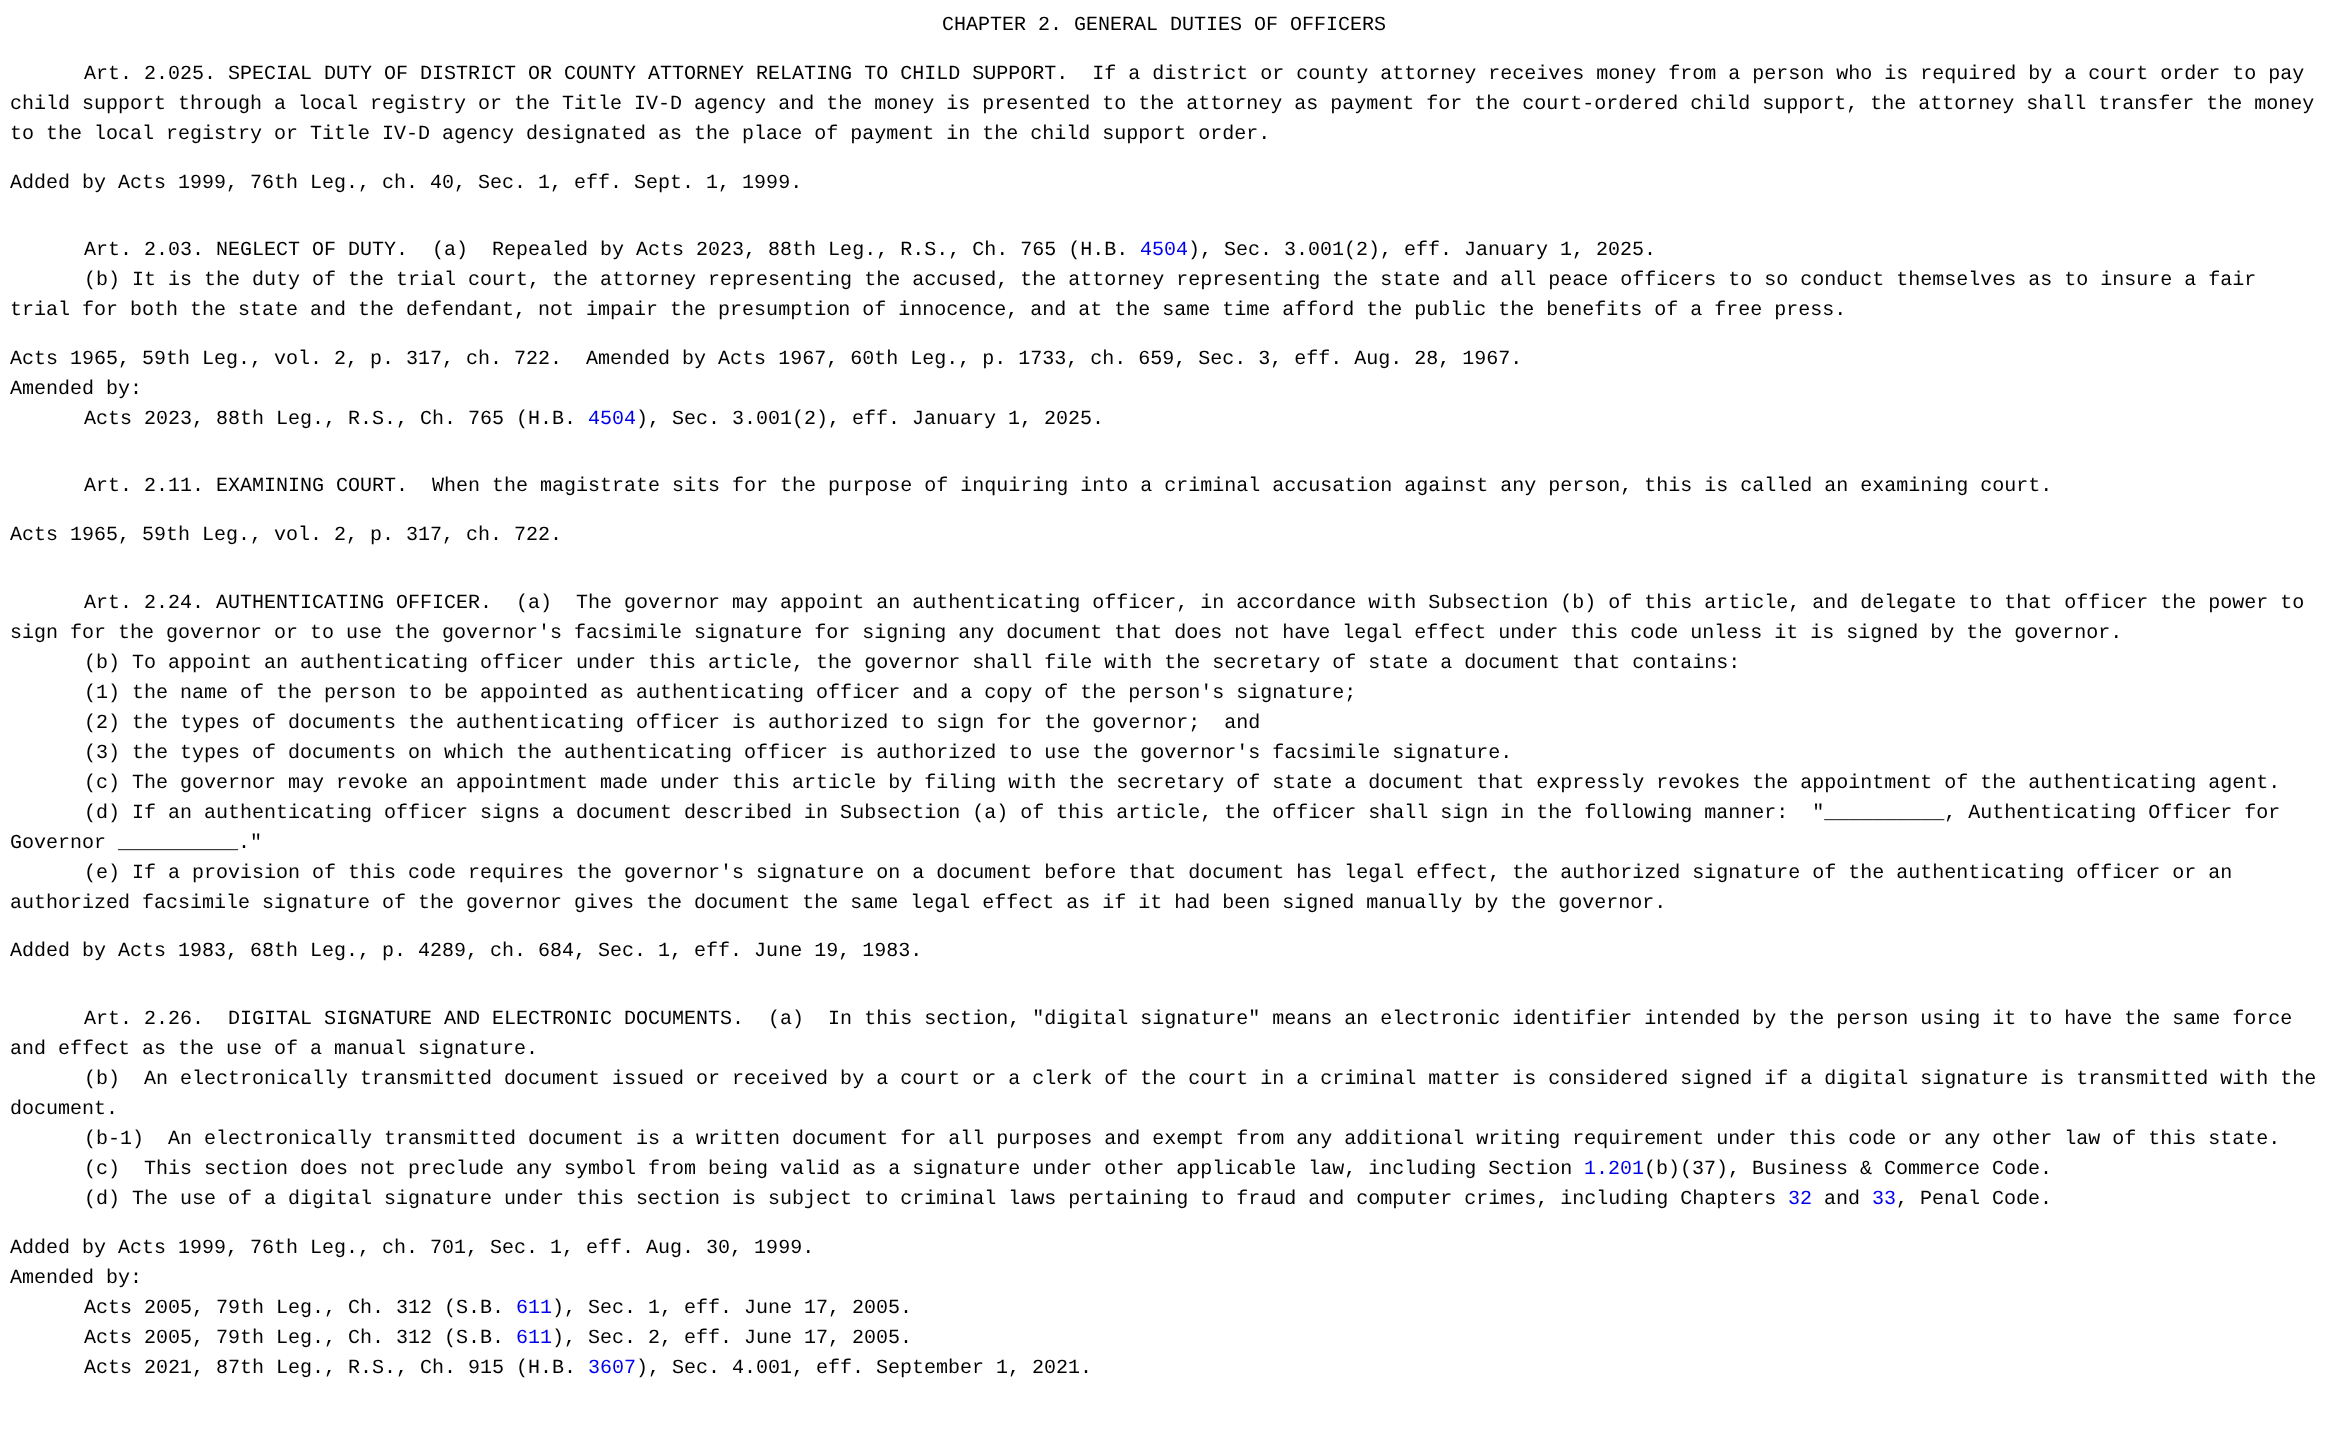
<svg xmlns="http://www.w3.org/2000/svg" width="2327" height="1447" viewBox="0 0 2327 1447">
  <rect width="100%" height="100%" fill="rgb(255,255,255)"/>
  <g font-family="Liberation Mono" font-size="20" fill="rgb(0,0,0)">
    <text x="942" y="30">CHAPTER 2. GENERAL DUTIES OF OFFICERS</text>
    <text x="84" y="79" xml:space="preserve">Art. 2.025. SPECIAL DUTY OF DISTRICT OR COUNTY ATTORNEY RELATING TO CHILD SUPPORT.  If a district or county attorney receives money from a person who is required by a court order to pay</text>
    <text>
      <tspan x="10" y="109">child support through a local registry or the Title IV-D agency and the money is presented to the attorney as payment for the court-ordered child support, the attorney shall transfer the money</tspan>
      <tspan x="10" y="139">to the local registry or Title IV-D agency designated as the place of payment in the child support order.</tspan>
    </text>
    <text x="10" y="188">Added by Acts 1999, 76th Leg., ch. 40, Sec. 1, eff. Sept. 1, 1999.</text>
    <text x="84" y="255" xml:space="preserve">Art. 2.03. NEGLECT OF DUTY.  (a)  Repealed by Acts 2023, 88th Leg., R.S., Ch. 765 (H.B.</text>
  </g>
  <text x="1140" y="255" font-family="Liberation Mono" font-size="20" fill="rgb(0,0,238)">4504</text>
  <g font-family="Liberation Mono" font-size="20" fill="rgb(0,0,0)">
    <text x="1188" y="255">), Sec. 3.001(2), eff. January 1, 2025.</text>
    <text x="84" y="285">(b) It is the duty of the trial court, the attorney representing the accused, the attorney representing the state and all peace officers to so conduct themselves as to insure a fair</text>
    <text x="10" y="315">trial for both the state and the defendant, not impair the presumption of innocence, and at the same time afford the public the benefits of a free press.</text>
    <text xml:space="preserve"><tspan x="10" y="364">Acts 1965, 59th Leg., vol. 2, p. 317, ch. 722.  Amended by Acts 1967, 60th Leg., p. 1733, ch. 659, Sec. 3, eff. Aug. 28, 1967.</tspan><tspan x="10" y="394">Amended by:</tspan></text>
    <text x="84" y="424">Acts 2023, 88th Leg., R.S., Ch. 765 (H.B.</text>
  </g>
  <text x="588" y="424" font-family="Liberation Mono" font-size="20" fill="rgb(0,0,238)">4504</text>
  <g font-family="Liberation Mono" font-size="20" fill="rgb(0,0,0)">
    <text x="636" y="424">), Sec. 3.001(2), eff. January 1, 2025.</text>
    <text x="84" y="491" xml:space="preserve">Art. 2.11. EXAMINING COURT.  When the magistrate sits for the purpose of inquiring into a criminal accusation against any person, this is called an examining court.</text>
    <text x="10" y="540">Acts 1965, 59th Leg., vol. 2, p. 317, ch. 722.</text>
    <text x="84" y="608" xml:space="preserve">Art. 2.24. AUTHENTICATING OFFICER.  (a)  The governor may appoint an authenticating officer, in accordance with Subsection (b) of this article, and delegate to that officer the power to</text>
    <text x="10" y="638">sign for the governor or to use the governor's facsimile signature for signing any document that does not have legal effect under this code unless it is signed by the governor.</text>
    <text xml:space="preserve"><tspan x="84" y="668">(b) To appoint an authenticating officer under this article, the governor shall file with the secretary of state a document that contains:</tspan><tspan x="84" y="698">(1) the name of the person to be appointed as authenticating officer and a copy of the person's signature;</tspan><tspan x="84" y="728">(2) the types of documents the authenticating officer is authorized to sign for the governor;  and</tspan><tspan x="84" y="758">(3) the types of documents on which the authenticating officer is authorized to use the governor's facsimile signature.</tspan><tspan x="84" y="788">(c) The governor may revoke an appointment made under this article by filing with the secretary of state a document that expressly revokes the appointment of the authenticating agent.</tspan><tspan x="84" y="818">(d) If an authenticating officer signs a document described in Subsection (a) of this article, the officer shall sign in the following manner:  "__________, Authenticating Officer for</tspan></text>
    <text x="10" y="848">Governor __________."</text>
    <text x="84" y="878">(e) If a provision of this code requires the governor's signature on a document before that document has legal effect, the authorized signature of the authenticating officer or an</text>
    <text x="10" y="908">authorized facsimile signature of the governor gives the document the same legal effect as if it had been signed manually by the governor.</text>
    <text x="10" y="956">Added by Acts 1983, 68th Leg., p. 4289, ch. 684, Sec. 1, eff. June 19, 1983.</text>
    <text x="84" y="1024" xml:space="preserve">Art. 2.26.  DIGITAL SIGNATURE AND ELECTRONIC DOCUMENTS.  (a)  In this section, "digital signature" means an electronic identifier intended by the person using it to have the same force</text>
    <text x="10" y="1054">and effect as the use of a manual signature.</text>
    <text x="84" y="1084" xml:space="preserve">(b)  An electronically transmitted document issued or received by a court or a clerk of the court in a criminal matter is considered signed if a digital signature is transmitted with the</text>
    <text x="10" y="1114">document.</text>
    <text xml:space="preserve"><tspan x="84" y="1144">(b-1)  An electronically transmitted document is a written document for all purposes and exempt from any additional writing requirement under this code or any other law of this state.</tspan><tspan x="84" y="1174">(c)  This section does not preclude any symbol from being valid as a signature under other applicable law, including Section</tspan></text>
  </g>
  <text x="1584" y="1174" font-family="Liberation Mono" font-size="20" fill="rgb(0,0,238)">1.201</text>
  <g font-family="Liberation Mono" font-size="20" fill="rgb(0,0,0)">
    <text x="1644" y="1174">(b)(37), Business &amp; Commerce Code.</text>
    <text x="84" y="1204">(d) The use of a digital signature under this section is subject to criminal laws pertaining to fraud and computer crimes, including Chapters</text>
  </g>
  <text x="1788" y="1204" font-family="Liberation Mono" font-size="20" fill="rgb(0,0,238)">32</text>
  <text x="1824" y="1204" font-family="Liberation Mono" font-size="20" fill="rgb(0,0,0)">and</text>
  <text x="1872" y="1204" font-family="Liberation Mono" font-size="20" fill="rgb(0,0,238)">33</text>
  <g font-family="Liberation Mono" font-size="20" fill="rgb(0,0,0)">
    <text x="1896" y="1204">, Penal Code.</text>
    <text>
      <tspan x="10" y="1253">Added by Acts 1999, 76th Leg., ch. 701, Sec. 1, eff. Aug. 30, 1999.</tspan>
      <tspan x="10" y="1283">Amended by:</tspan>
    </text>
    <text x="84" y="1313">Acts 2005, 79th Leg., Ch. 312 (S.B.</text>
  </g>
  <text x="516" y="1313" font-family="Liberation Mono" font-size="20" fill="rgb(0,0,238)">611</text>
  <g font-family="Liberation Mono" font-size="20" fill="rgb(0,0,0)">
    <text x="552" y="1313">), Sec. 1, eff. June 17, 2005.</text>
    <text x="84" y="1343">Acts 2005, 79th Leg., Ch. 312 (S.B.</text>
  </g>
  <text x="516" y="1343" font-family="Liberation Mono" font-size="20" fill="rgb(0,0,238)">611</text>
  <g font-family="Liberation Mono" font-size="20" fill="rgb(0,0,0)">
    <text x="552" y="1343">), Sec. 2, eff. June 17, 2005.</text>
    <text x="84" y="1373">Acts 2021, 87th Leg., R.S., Ch. 915 (H.B.</text>
  </g>
  <text x="588" y="1373" font-family="Liberation Mono" font-size="20" fill="rgb(0,0,238)">3607</text>
  <text x="636" y="1373" font-family="Liberation Mono" font-size="20" fill="rgb(0,0,0)">), Sec. 4.001, eff. September 1, 2021.</text>
</svg>
